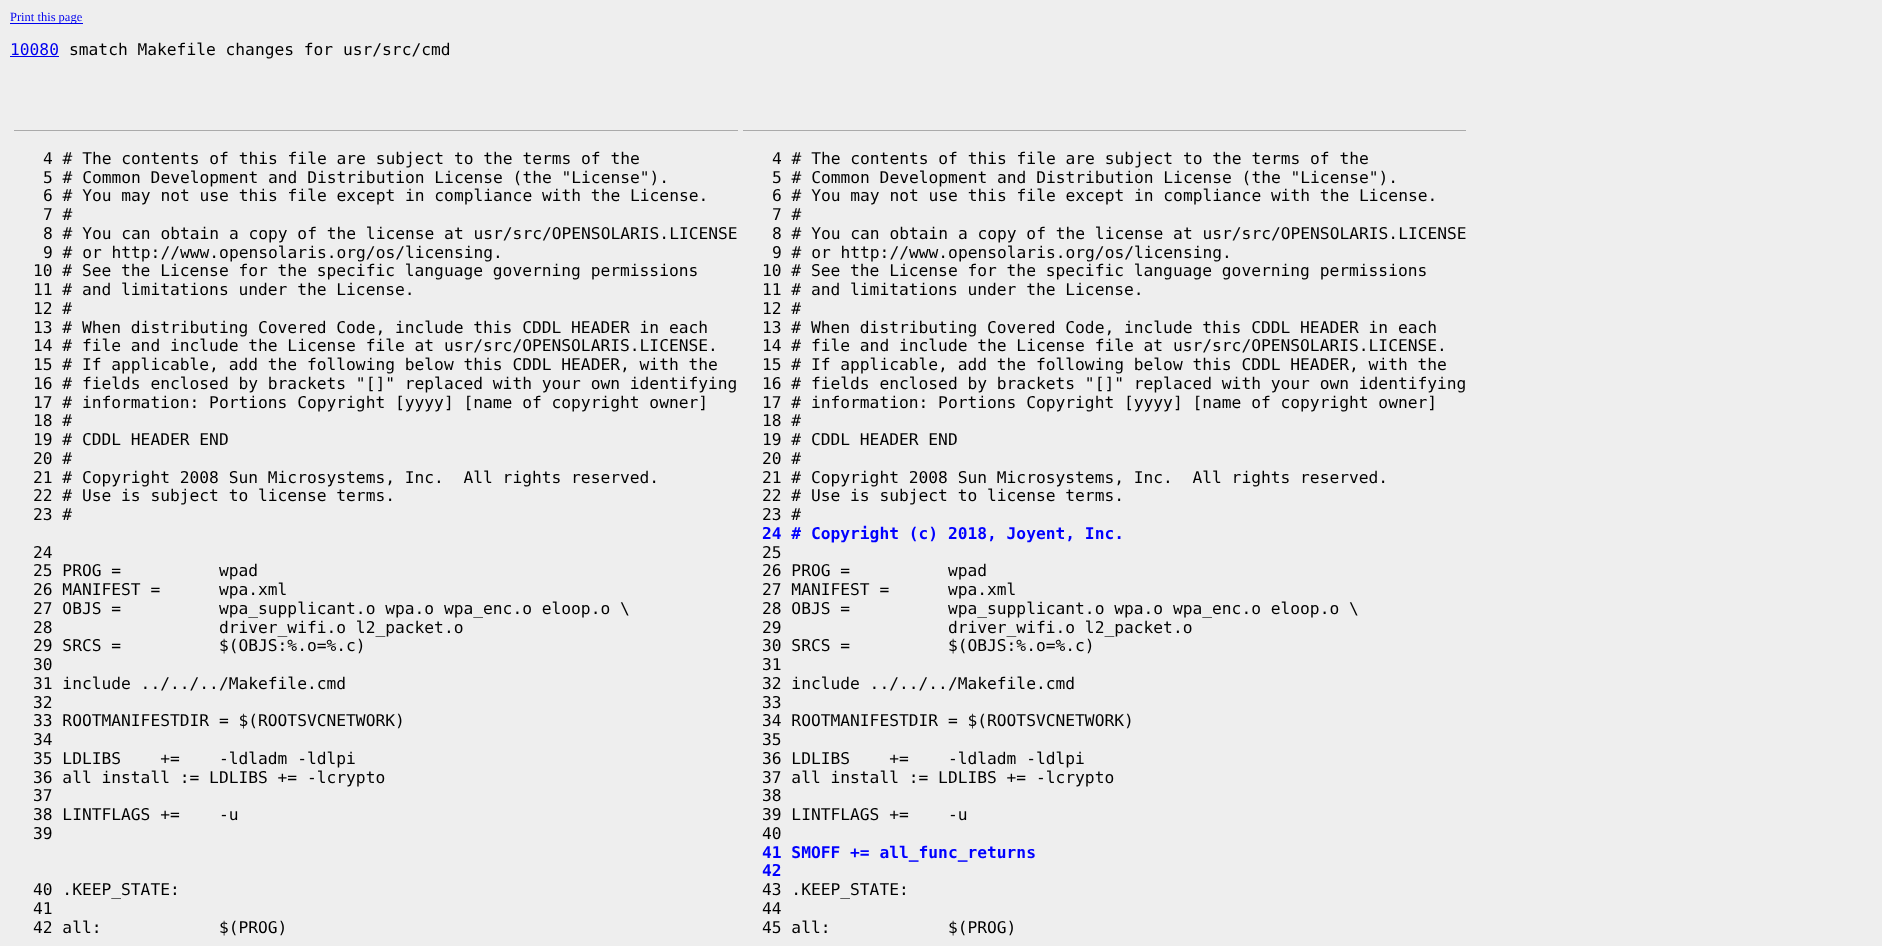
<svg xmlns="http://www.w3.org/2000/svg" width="1882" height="946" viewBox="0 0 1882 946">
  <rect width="100%" height="100%" fill="rgb(238,238,238)"/>
  <rect x="10" y="23" width="73" height="1" fill="rgb(0,0,238)"/>
  <text x="10" y="21" font-family="Liberation Serif" font-size="12.5" fill="rgb(0,0,238)">Print this page</text>
  <text x="10" y="55" font-family="DejaVu Sans Mono" font-size="16.25" fill="rgb(0,0,238)">10080</text>
  <rect x="10" y="56" width="49" height="1" fill="rgb(0,0,238)"/>
  <text x="69" y="55" font-family="DejaVu Sans Mono" font-size="16.25" fill="rgb(0,0,0)">smatch Makefile changes for usr/src/cmd</text>
  <rect x="14" y="130" width="724" height="1" fill="rgb(170,170,170)"/>
  <g font-family="DejaVu Sans Mono" font-size="16.25" fill="rgb(0,0,0)">
    <text>
      <tspan x="43" y="164">4 # The contents of this file are subject to the terms of the</tspan>
      <tspan x="43" y="183">5 # Common Development and Distribution License (the "License").</tspan>
      <tspan x="43" y="201">6 # You may not use this file except in compliance with the License.</tspan>
      <tspan x="43" y="220">7 #</tspan>
      <tspan x="43" y="239">8 # You can obtain a copy of the license at usr/src/OPENSOLARIS.LICENSE</tspan>
      <tspan x="43" y="258">9 # or http://www.opensolaris.org/os/licensing.</tspan>
    </text>
    <text xml:space="preserve"><tspan x="33" y="276">10 # See the License for the specific language governing permissions</tspan><tspan x="33" y="295">11 # and limitations under the License.</tspan><tspan x="33" y="314">12 #</tspan><tspan x="33" y="333">13 # When distributing Covered Code, include this CDDL HEADER in each</tspan><tspan x="33" y="351">14 # file and include the License file at usr/src/OPENSOLARIS.LICENSE.</tspan><tspan x="33" y="370">15 # If applicable, add the following below this CDDL HEADER, with the</tspan><tspan x="33" y="389">16 # fields enclosed by brackets "[]" replaced with your own identifying</tspan><tspan x="33" y="408">17 # information: Portions Copyright [yyyy] [name of copyright owner]</tspan><tspan x="33" y="426">18 #</tspan><tspan x="33" y="445">19 # CDDL HEADER END</tspan><tspan x="33" y="464">20 #</tspan><tspan x="33" y="483">21 # Copyright 2008 Sun Microsystems, Inc.  All rights reserved.</tspan><tspan x="33" y="501">22 # Use is subject to license terms.</tspan><tspan x="33" y="520">23 #</tspan></text>
    <text xml:space="preserve"><tspan x="33" y="558">24</tspan><tspan x="33" y="576">25 PROG =          wpad</tspan><tspan x="33" y="595">26 MANIFEST =      wpa.xml</tspan><tspan x="33" y="614">27 OBJS =          wpa_supplicant.o wpa.o wpa_enc.o eloop.o \</tspan><tspan x="33" y="633">28                 driver_wifi.o l2_packet.o</tspan><tspan x="33" y="651">29 SRCS =          $(OBJS:%.o=%.c)</tspan><tspan x="33" y="670">30</tspan><tspan x="33" y="689">31 include ../../../Makefile.cmd</tspan><tspan x="33" y="708">32</tspan><tspan x="33" y="726">33 ROOTMANIFESTDIR = $(ROOTSVCNETWORK)</tspan><tspan x="33" y="745">34</tspan><tspan x="33" y="764">35 LDLIBS    +=    -ldladm -ldlpi</tspan><tspan x="33" y="783">36 all install := LDLIBS += -lcrypto</tspan><tspan x="33" y="801">37</tspan><tspan x="33" y="820">38 LINTFLAGS +=    -u</tspan><tspan x="33" y="839">39</tspan></text>
    <text xml:space="preserve"><tspan x="33" y="895">40 .KEEP_STATE:</tspan><tspan x="33" y="914">41</tspan><tspan x="33" y="933">42 all:            $(PROG)</tspan></text>
  </g>
  <rect x="743" y="130" width="723" height="1" fill="rgb(170,170,170)"/>
  <g font-family="DejaVu Sans Mono" font-size="16.25" fill="rgb(0,0,0)">
    <text>
      <tspan x="772" y="164">4 # The contents of this file are subject to the terms of the</tspan>
      <tspan x="772" y="183">5 # Common Development and Distribution License (the "License").</tspan>
      <tspan x="772" y="201">6 # You may not use this file except in compliance with the License.</tspan>
      <tspan x="772" y="220">7 #</tspan>
      <tspan x="772" y="239">8 # You can obtain a copy of the license at usr/src/OPENSOLARIS.LICENSE</tspan>
      <tspan x="772" y="258">9 # or http://www.opensolaris.org/os/licensing.</tspan>
    </text>
    <text xml:space="preserve"><tspan x="762" y="276">10 # See the License for the specific language governing permissions</tspan><tspan x="762" y="295">11 # and limitations under the License.</tspan><tspan x="762" y="314">12 #</tspan><tspan x="762" y="333">13 # When distributing Covered Code, include this CDDL HEADER in each</tspan><tspan x="762" y="351">14 # file and include the License file at usr/src/OPENSOLARIS.LICENSE.</tspan><tspan x="762" y="370">15 # If applicable, add the following below this CDDL HEADER, with the</tspan><tspan x="762" y="389">16 # fields enclosed by brackets "[]" replaced with your own identifying</tspan><tspan x="762" y="408">17 # information: Portions Copyright [yyyy] [name of copyright owner]</tspan><tspan x="762" y="426">18 #</tspan><tspan x="762" y="445">19 # CDDL HEADER END</tspan><tspan x="762" y="464">20 #</tspan><tspan x="762" y="483">21 # Copyright 2008 Sun Microsystems, Inc.  All rights reserved.</tspan><tspan x="762" y="501">22 # Use is subject to license terms.</tspan><tspan x="762" y="520">23 #</tspan></text>
  </g>
  <text x="762" y="539" font-family="DejaVu Sans Mono" font-size="16.25" font-weight="bold" fill="rgb(0,0,255)">24 # Copyright (c) 2018, Joyent, Inc.</text>
  <g font-family="DejaVu Sans Mono" font-size="16.25" fill="rgb(0,0,0)">
    <text xml:space="preserve"><tspan x="762" y="558">25</tspan><tspan x="762" y="576">26 PROG =          wpad</tspan><tspan x="762" y="595">27 MANIFEST =      wpa.xml</tspan><tspan x="762" y="614">28 OBJS =          wpa_supplicant.o wpa.o wpa_enc.o eloop.o \</tspan><tspan x="762" y="633">29                 driver_wifi.o l2_packet.o</tspan><tspan x="762" y="651">30 SRCS =          $(OBJS:%.o=%.c)</tspan><tspan x="762" y="670">31</tspan><tspan x="762" y="689">32 include ../../../Makefile.cmd</tspan><tspan x="762" y="708">33</tspan><tspan x="762" y="726">34 ROOTMANIFESTDIR = $(ROOTSVCNETWORK)</tspan><tspan x="762" y="745">35</tspan><tspan x="762" y="764">36 LDLIBS    +=    -ldladm -ldlpi</tspan><tspan x="762" y="783">37 all install := LDLIBS += -lcrypto</tspan><tspan x="762" y="801">38</tspan><tspan x="762" y="820">39 LINTFLAGS +=    -u</tspan><tspan x="762" y="839">40</tspan></text>
  </g>
  <g font-family="DejaVu Sans Mono" font-size="16.25" font-weight="bold" fill="rgb(0,0,255)">
    <text>
      <tspan x="762" y="858">41 SMOFF += all_func_returns</tspan>
      <tspan x="762" y="876">42</tspan>
    </text>
  </g>
  <g font-family="DejaVu Sans Mono" font-size="16.25" fill="rgb(0,0,0)">
    <text xml:space="preserve"><tspan x="762" y="895">43 .KEEP_STATE:</tspan><tspan x="762" y="914">44</tspan><tspan x="762" y="933">45 all:            $(PROG)</tspan></text>
  </g>
</svg>
